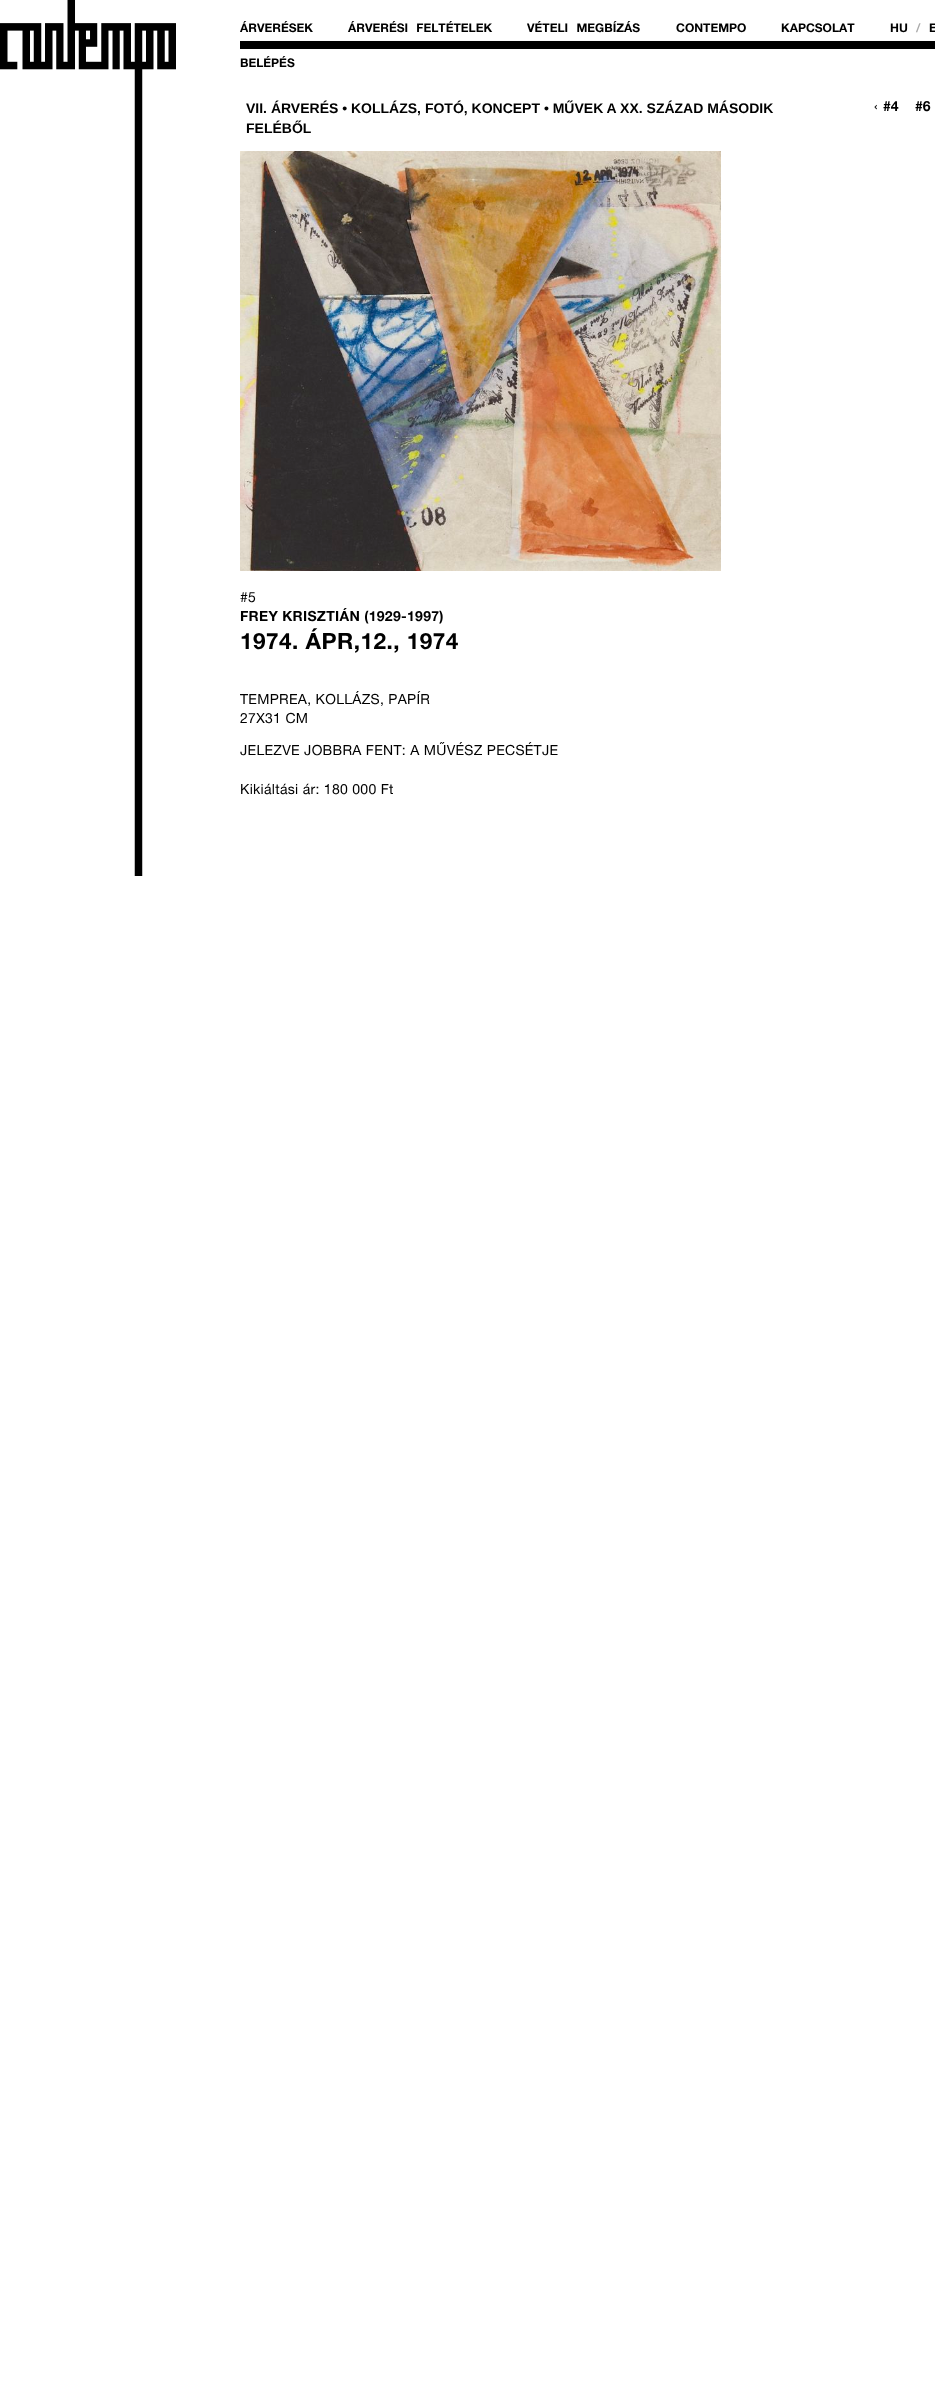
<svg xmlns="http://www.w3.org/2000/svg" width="935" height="2392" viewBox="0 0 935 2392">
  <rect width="100%" height="100%" fill="rgb(255,255,255)"/>
  <image x="0" y="0" width="176" height="876" href="pic1.png"/>
  <g font-family="Helvetica Neue" font-size="12" font-weight="bold" fill="rgb(0,0,0)">
    <text x="240" y="32">ÁRVERÉSEK</text>
    <text x="348" y="32" word-spacing="5">ÁRVERÉSI FELTÉTELEK</text>
    <text x="527" y="32" word-spacing="5">VÉTELI MEGBÍZÁS</text>
    <text x="676" y="32">CONTEMPO</text>
    <text x="781" y="32">KAPCSOLAT</text>
    <text x="890" y="32">HU</text>
  </g>
  <text x="916" y="32" font-family="Helvetica Neue" font-size="12" font-weight="bold" fill="rgb(170,170,170)">/</text>
  <g font-family="Helvetica Neue" font-size="12" font-weight="bold" fill="rgb(0,0,0)">
    <text x="929" y="32">E</text>
    <text x="240" y="67">BELÉPÉS</text>
  </g>
  <g font-family="Liberation Sans" font-size="14" font-weight="bold" fill="rgb(0,0,0)">
    <text>
      <tspan x="246" y="113">VII. ÁRVERÉS • KOLLÁZS, FOTÓ, KONCEPT • MŰVEK A XX. SZÁZAD MÁSODIK</tspan>
      <tspan x="246" y="133">FELÉBŐL</tspan>
    </text>
  </g>
  <text x="874" y="111" font-family="Helvetica Neue" font-size="14" fill="rgb(0,0,0)">‹</text>
  <g font-family="Helvetica Neue" font-size="14" font-weight="bold" fill="rgb(0,0,0)">
    <text x="883" y="111">#4</text>
    <text x="915" y="111">#6</text>
  </g>
  <image x="240" y="151" width="481" height="420" href="pic2.png"/>
  <text x="240" y="602" font-family="Helvetica Neue" font-size="14" letter-spacing="0.3" fill="rgb(0,0,0)">#5</text>
  <text x="240" y="621" font-family="Helvetica Neue" font-size="14" font-weight="bold" letter-spacing="0.3" fill="rgb(0,0,0)">FREY KRISZTIÁN (1929-1997)</text>
  <text x="240" y="649" font-family="Helvetica Neue" font-size="22.5" font-weight="bold" letter-spacing="0.5" fill="rgb(0,0,0)">1974. ÁPR,12., 1974</text>
  <g font-family="Helvetica Neue" font-size="14" letter-spacing="0.3" fill="rgb(0,0,0)">
    <text>
      <tspan x="240" y="704">TEMPREA, KOLLÁZS, PAPÍR</tspan>
      <tspan x="240" y="723">27X31 CM</tspan>
    </text>
    <text x="240" y="755">JELEZVE JOBBRA FENT: A MŰVÉSZ PECSÉTJE</text>
    <text x="240" y="794">Kikiáltási ár: 180 000 Ft</text>
  </g>
  <rect x="240" y="41" width="695" height="8" fill="rgb(0,0,0)"/>
</svg>
